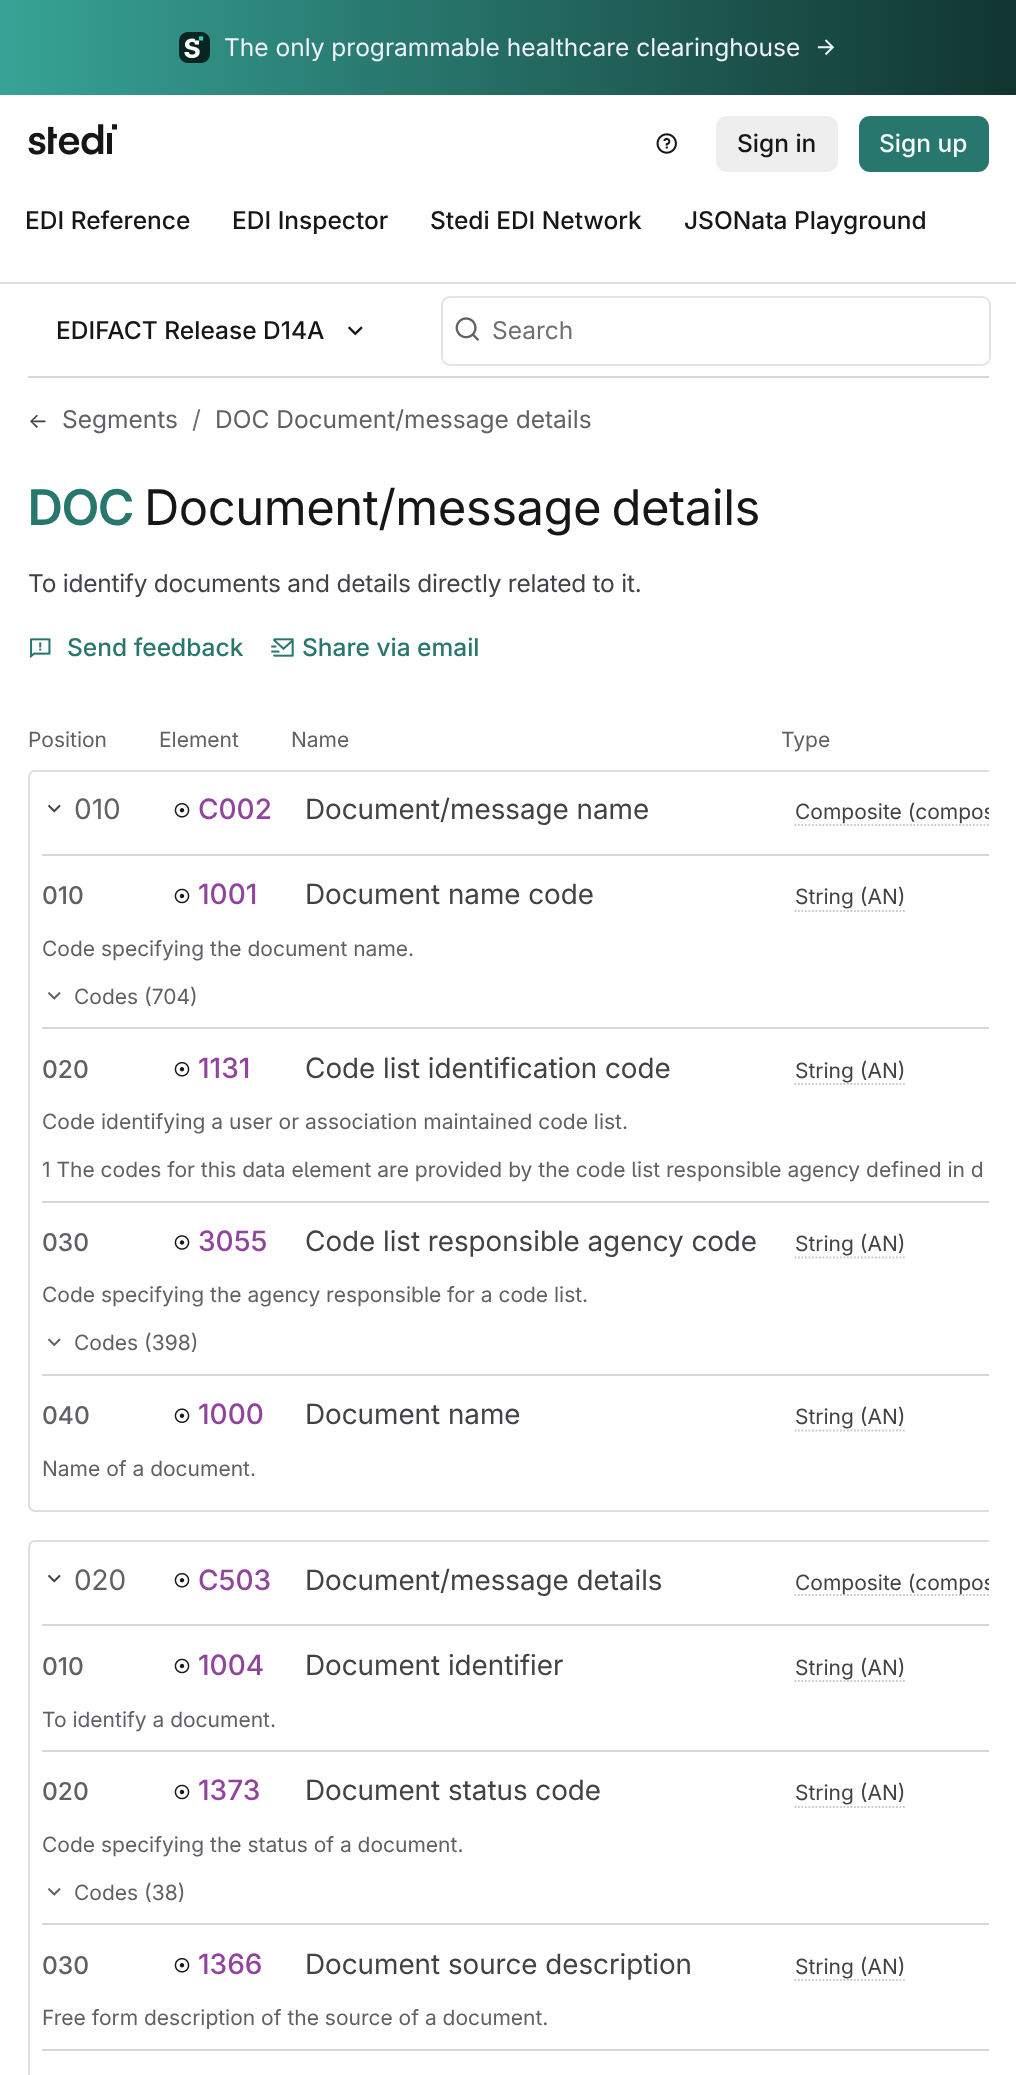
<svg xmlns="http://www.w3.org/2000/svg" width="1016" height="2075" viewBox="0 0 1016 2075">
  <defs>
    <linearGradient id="g1" gradientUnits="userSpaceOnUse" x1="0" y1="47" x2="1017" y2="47"><stop offset="0" stop-color="rgb(55,163,150)"/><stop offset="1" stop-color="rgb(17,53,48)"/></linearGradient>
    <clipPath id="clip1"><rect x="28" y="723" width="961" height="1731"/></clipPath>
  </defs>
  <rect width="100%" height="100%" fill="rgb(255,255,255)"/>
  <rect x="0" y="0" width="1016" height="95" fill="url(#g1)"/>
  <image x="179" y="32" width="31" height="31" href="pic1.png"/>
  <text x="224" y="56" font-family="Inter" font-size="24.5" fill="rgb(241,241,250)">The only programmable healthcare clearinghouse</text>
  <image x="817" y="39" width="18" height="17" href="pic2.png"/>
  <rect x="0" y="282" width="1016" height="2" fill="rgb(222,222,224)"/>
  <image x="28" y="124" width="89" height="31" href="pic3.png"/>
  <image x="656" y="133" width="21" height="21" href="pic4.png"/>
  <rect x="716" y="116" width="122" height="56" rx="11" fill="rgb(238,238,239)"/>
  <text x="737" y="152" font-family="Inter" font-size="24.5" font-weight="500" fill="rgb(22,22,23)">Sign in</text>
  <rect x="859" y="116" width="130" height="56" rx="11" fill="rgb(39,119,110)"/>
  <text x="879" y="152" font-family="Inter" font-size="24.5" font-weight="500" fill="rgb(245,250,249)">Sign up</text>
  <g font-family="Inter" font-size="24.5" font-weight="500" fill="rgb(22,22,23)">
    <text x="25" y="229">EDI Reference</text>
    <text x="232" y="229">EDI Inspector</text>
    <text x="430" y="229">Stedi EDI Network</text>
    <text x="684" y="229">JSONata Playground</text>
  </g>
  <rect x="28" y="376" width="961" height="2" fill="rgb(215,215,217)"/>
  <text x="56" y="339" font-family="Inter" font-size="24.5" font-weight="500" fill="rgb(22,22,23)">EDIFACT Release D14A</text>
  <image x="348" y="326" width="15" height="10" href="pic5.png"/>
  <rect x="442" y="297" width="548" height="68" rx="8" fill="none" stroke="rgb(228,228,230)" stroke-width="2"/>
  <image x="455" y="317" width="25" height="24" href="pic6.png"/>
  <text x="492" y="339" font-family="Inter" font-size="24.5" fill="rgb(110,110,116)">Search</text>
  <text x="28" y="428" font-family="Inter" font-size="21" fill="rgb(66,66,70)">←</text>
  <text x="62" y="428" font-family="Inter" font-size="24.5" fill="rgb(96,96,101)">Segments</text>
  <text x="192" y="428" font-family="Inter" font-size="24.5" fill="rgb(110,110,116)">/</text>
  <text x="215" y="428" font-family="Inter" font-size="24.5" fill="rgb(96,96,101)">DOC Document/message details</text>
  <text x="28" y="525" font-family="Inter" font-size="49" font-weight="600" letter-spacing="-0.5" fill="rgb(39,119,110)">DOC</text>
  <text x="144" y="525" word-spacing="-3" font-family="Inter" font-size="49" letter-spacing="-0.5" fill="rgb(22,22,23)">Document/message details</text>
  <text x="28" y="592" font-family="Inter" font-size="24.5" letter-spacing="-0.25" fill="rgb(66,66,70)">To identify documents and details directly related to it.</text>
  <image x="30" y="638" width="21" height="21" href="pic7.png"/>
  <text x="67" y="656" font-family="Inter" font-size="24.5" font-weight="500" fill="rgb(39,119,110)">Send feedback</text>
  <image x="271" y="638" width="23" height="19" href="pic8.png"/>
  <text x="302" y="656" font-family="Inter" font-size="24.5" font-weight="500" fill="rgb(39,119,110)">Share via email</text>
  <g font-family="Inter" font-size="21" fill="rgb(96,96,101)">
    <text x="28" y="747">Position</text>
    <text x="159" y="747">Element</text>
    <text x="291" y="747">Name</text>
    <text x="781" y="747">Type</text>
  </g>
  <g clip-path="url(#clip1)">
    <rect x="29" y="771" width="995" height="740" rx="6" fill="none" stroke="rgb(222,222,224)" stroke-width="2"/>
  </g>
  <image x="47" y="804" width="14" height="9" href="pic9.png"/>
  <text x="74" y="819" font-family="Inter" font-size="28" fill="rgb(96,96,101)">010</text>
  <image x="174" y="803" width="16" height="15" href="pic10.png"/>
  <text x="198" y="819" font-family="Inter" font-size="28" font-weight="500" fill="rgb(145,68,157)">C002</text>
  <text x="305" y="819" font-family="'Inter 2'" font-size="28" fill="rgb(66,66,70)">Document/message name</text>
  <g clip-path="url(#clip1)">
    <text x="795" y="819" font-family="Inter" font-size="21" fill="rgb(66,66,70)">Composite (compos</text>
    <path d="M794.5 825H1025.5" fill="none" stroke="rgb(202,202,203)" stroke-width="1.8" stroke-dasharray="1.75 1.75"/>
  </g>
  <rect x="42" y="854" width="947" height="2" fill="rgb(215,215,217)"/>
  <text x="42" y="904" font-family="Inter" font-size="24.5" font-weight="500" fill="rgb(96,96,101)">010</text>
  <image x="174" y="888" width="16" height="16" href="pic11.png"/>
  <text x="198" y="904" font-family="Inter" font-size="28" font-weight="500" fill="rgb(145,68,157)">1001</text>
  <text x="305" y="904" font-family="'Inter 2'" font-size="28" fill="rgb(66,66,70)">Document name code</text>
  <text x="795" y="904" font-family="Inter" font-size="21" fill="rgb(66,66,70)">String (AN)</text>
  <path d="M794.5 911H905" fill="none" stroke="rgb(202,202,203)" stroke-width="1.8" stroke-dasharray="1.75 1.75"/>
  <text x="42" y="956" font-family="Inter" font-size="21" fill="rgb(96,96,101)">Code specifying the document name.</text>
  <image x="47" y="992" width="14" height="8" href="pic12.png"/>
  <text x="74" y="1004" font-family="Inter" font-size="21" fill="rgb(96,96,101)">Codes (704)</text>
  <rect x="42" y="1027" width="947" height="2" fill="rgb(215,215,217)"/>
  <text x="42" y="1078" font-family="Inter" font-size="24.5" font-weight="500" fill="rgb(96,96,101)">020</text>
  <image x="174" y="1062" width="16" height="15" href="pic10.png"/>
  <text x="198" y="1078" font-family="Inter" font-size="28" font-weight="500" fill="rgb(145,68,157)">1131</text>
  <text x="305" y="1078" font-family="'Inter 2'" font-size="28" fill="rgb(66,66,70)">Code list identification code</text>
  <text x="795" y="1078" font-family="Inter" font-size="21" fill="rgb(66,66,70)">String (AN)</text>
  <path d="M794.5 1084H905" fill="none" stroke="rgb(202,202,203)" stroke-width="1.8" stroke-dasharray="1.75 1.75"/>
  <text x="42" y="1129" font-family="Inter" font-size="21" fill="rgb(96,96,101)">Code identifying a user or association maintained code list.</text>
  <text x="42" y="1177" font-family="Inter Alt" font-size="21" fill="rgb(96,96,101)">1 The codes for this data element are provided by the code list responsible agency defined in d</text>
  <rect x="42" y="1201" width="947" height="2" fill="rgb(215,215,217)"/>
  <text x="42" y="1251" font-family="Inter" font-size="24.5" font-weight="500" fill="rgb(96,96,101)">030</text>
  <image x="174" y="1235" width="16" height="15" href="pic13.png"/>
  <text x="198" y="1251" font-family="Inter" font-size="28" font-weight="500" fill="rgb(145,68,157)">3055</text>
  <text x="305" y="1251" font-family="'Inter 2'" font-size="28" fill="rgb(66,66,70)">Code list responsible agency code</text>
  <text x="795" y="1251" font-family="Inter" font-size="21" fill="rgb(66,66,70)">String (AN)</text>
  <path d="M794.5 1257.5H905" fill="none" stroke="rgb(202,202,203)" stroke-width="1.8" stroke-dasharray="1.75 1.75"/>
  <text x="42" y="1302" font-family="Inter" font-size="21" fill="rgb(96,96,101)">Code specifying the agency responsible for a code list.</text>
  <image x="47" y="1338" width="14" height="9" href="pic14.png"/>
  <text x="74" y="1350" font-family="Inter" font-size="21" fill="rgb(96,96,101)">Codes (398)</text>
  <rect x="42" y="1374" width="947" height="2" fill="rgb(215,215,217)"/>
  <text x="42" y="1424" font-family="Inter" font-size="24.5" font-weight="500" fill="rgb(96,96,101)">040</text>
  <image x="174" y="1408" width="16" height="15" href="pic15.png"/>
  <text x="198" y="1424" font-family="Inter" font-size="28" font-weight="500" fill="rgb(145,68,157)">1000</text>
  <text x="305" y="1424" font-family="'Inter 2'" font-size="28" fill="rgb(66,66,70)">Document name</text>
  <text x="795" y="1424" font-family="Inter" font-size="21" fill="rgb(66,66,70)">String (AN)</text>
  <path d="M794.5 1430.5H905" fill="none" stroke="rgb(202,202,203)" stroke-width="1.8" stroke-dasharray="1.75 1.75"/>
  <text x="42" y="1476" font-family="Inter" font-size="21" fill="rgb(96,96,101)">Name of a document.</text>
  <g clip-path="url(#clip1)">
    <rect x="29" y="1541" width="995" height="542" rx="6" fill="none" stroke="rgb(222,222,224)" stroke-width="2"/>
  </g>
  <image x="47" y="1574" width="14" height="9" href="pic9.png"/>
  <text x="74" y="1590" font-family="'Inter 2'" font-size="28" fill="rgb(96,96,101)">020</text>
  <image x="174" y="1573" width="16" height="15" href="pic10.png"/>
  <text x="198" y="1590" font-family="Inter" font-size="28" font-weight="500" fill="rgb(145,68,157)">C503</text>
  <text x="305" y="1590" font-family="'Inter 2'" font-size="28" fill="rgb(66,66,70)">Document/message details</text>
  <g clip-path="url(#clip1)">
    <path d="M794.5 1595H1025.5" fill="none" stroke="rgb(202,202,203)" stroke-width="1.8" stroke-dasharray="1.75 1.75"/>
    <text x="795" y="1590" font-family="Inter" font-size="21" fill="rgb(66,66,70)">Composite (compos</text>
  </g>
  <rect x="42" y="1624" width="947" height="2" fill="rgb(215,215,217)"/>
  <text x="42" y="1675" font-family="Inter" font-size="24.5" font-weight="500" fill="rgb(96,96,101)">010</text>
  <image x="174" y="1658" width="16" height="16" href="pic11.png"/>
  <text x="198" y="1675" font-family="Inter" font-size="28" font-weight="500" fill="rgb(145,68,157)">1004</text>
  <text x="305" y="1675" font-family="'Inter 2'" font-size="28" fill="rgb(66,66,70)">Document identifier</text>
  <text x="795" y="1675" font-family="Inter" font-size="21" fill="rgb(66,66,70)">String (AN)</text>
  <path d="M794.5 1681H905" fill="none" stroke="rgb(202,202,203)" stroke-width="1.8" stroke-dasharray="1.75 1.75"/>
  <text x="42" y="1727" font-family="Inter" font-size="21" fill="rgb(96,96,101)">To identify a document.</text>
  <rect x="42" y="1750" width="947" height="2" fill="rgb(215,215,217)"/>
  <text x="42" y="1800" font-family="Inter" font-size="24.5" font-weight="500" fill="rgb(96,96,101)">020</text>
  <image x="174" y="1784" width="16" height="16" href="pic11.png"/>
  <text x="198" y="1800" font-family="Inter" font-size="28" font-weight="500" fill="rgb(145,68,157)">1373</text>
  <text x="305" y="1800" font-family="'Inter 2'" font-size="28" fill="rgb(66,66,70)">Document status code</text>
  <text x="795" y="1800" font-family="Inter" font-size="21" fill="rgb(66,66,70)">String (AN)</text>
  <path d="M794.5 1807H905" fill="none" stroke="rgb(202,202,203)" stroke-width="1.8" stroke-dasharray="1.75 1.75"/>
  <text x="42" y="1852" font-family="Inter" font-size="21" fill="rgb(96,96,101)">Code specifying the status of a document.</text>
  <image x="47" y="1888" width="14" height="8" href="pic12.png"/>
  <text x="74" y="1900" font-family="Inter" font-size="21" fill="rgb(96,96,101)">Codes (38)</text>
  <rect x="42" y="1923" width="947" height="2" fill="rgb(215,215,217)"/>
  <text x="42" y="1974" font-family="Inter" font-size="24.5" font-weight="500" fill="rgb(96,96,101)">030</text>
  <image x="174" y="1958" width="16" height="15" href="pic10.png"/>
  <text x="198" y="1974" font-family="Inter" font-size="28" font-weight="500" fill="rgb(145,68,157)">1366</text>
  <text x="305" y="1974" font-family="'Inter 2'" font-size="28" fill="rgb(66,66,70)">Document source description</text>
  <text x="795" y="1974" font-family="Inter" font-size="21" fill="rgb(66,66,70)">String (AN)</text>
  <path d="M794.5 1980H905" fill="none" stroke="rgb(202,202,203)" stroke-width="1.8" stroke-dasharray="1.75 1.75"/>
  <text x="42" y="2025" font-family="Inter" font-size="21" fill="rgb(96,96,101)">Free form description of the source of a document.</text>
  <rect x="42" y="2049" width="947" height="2" fill="rgb(215,215,217)"/>
</svg>
